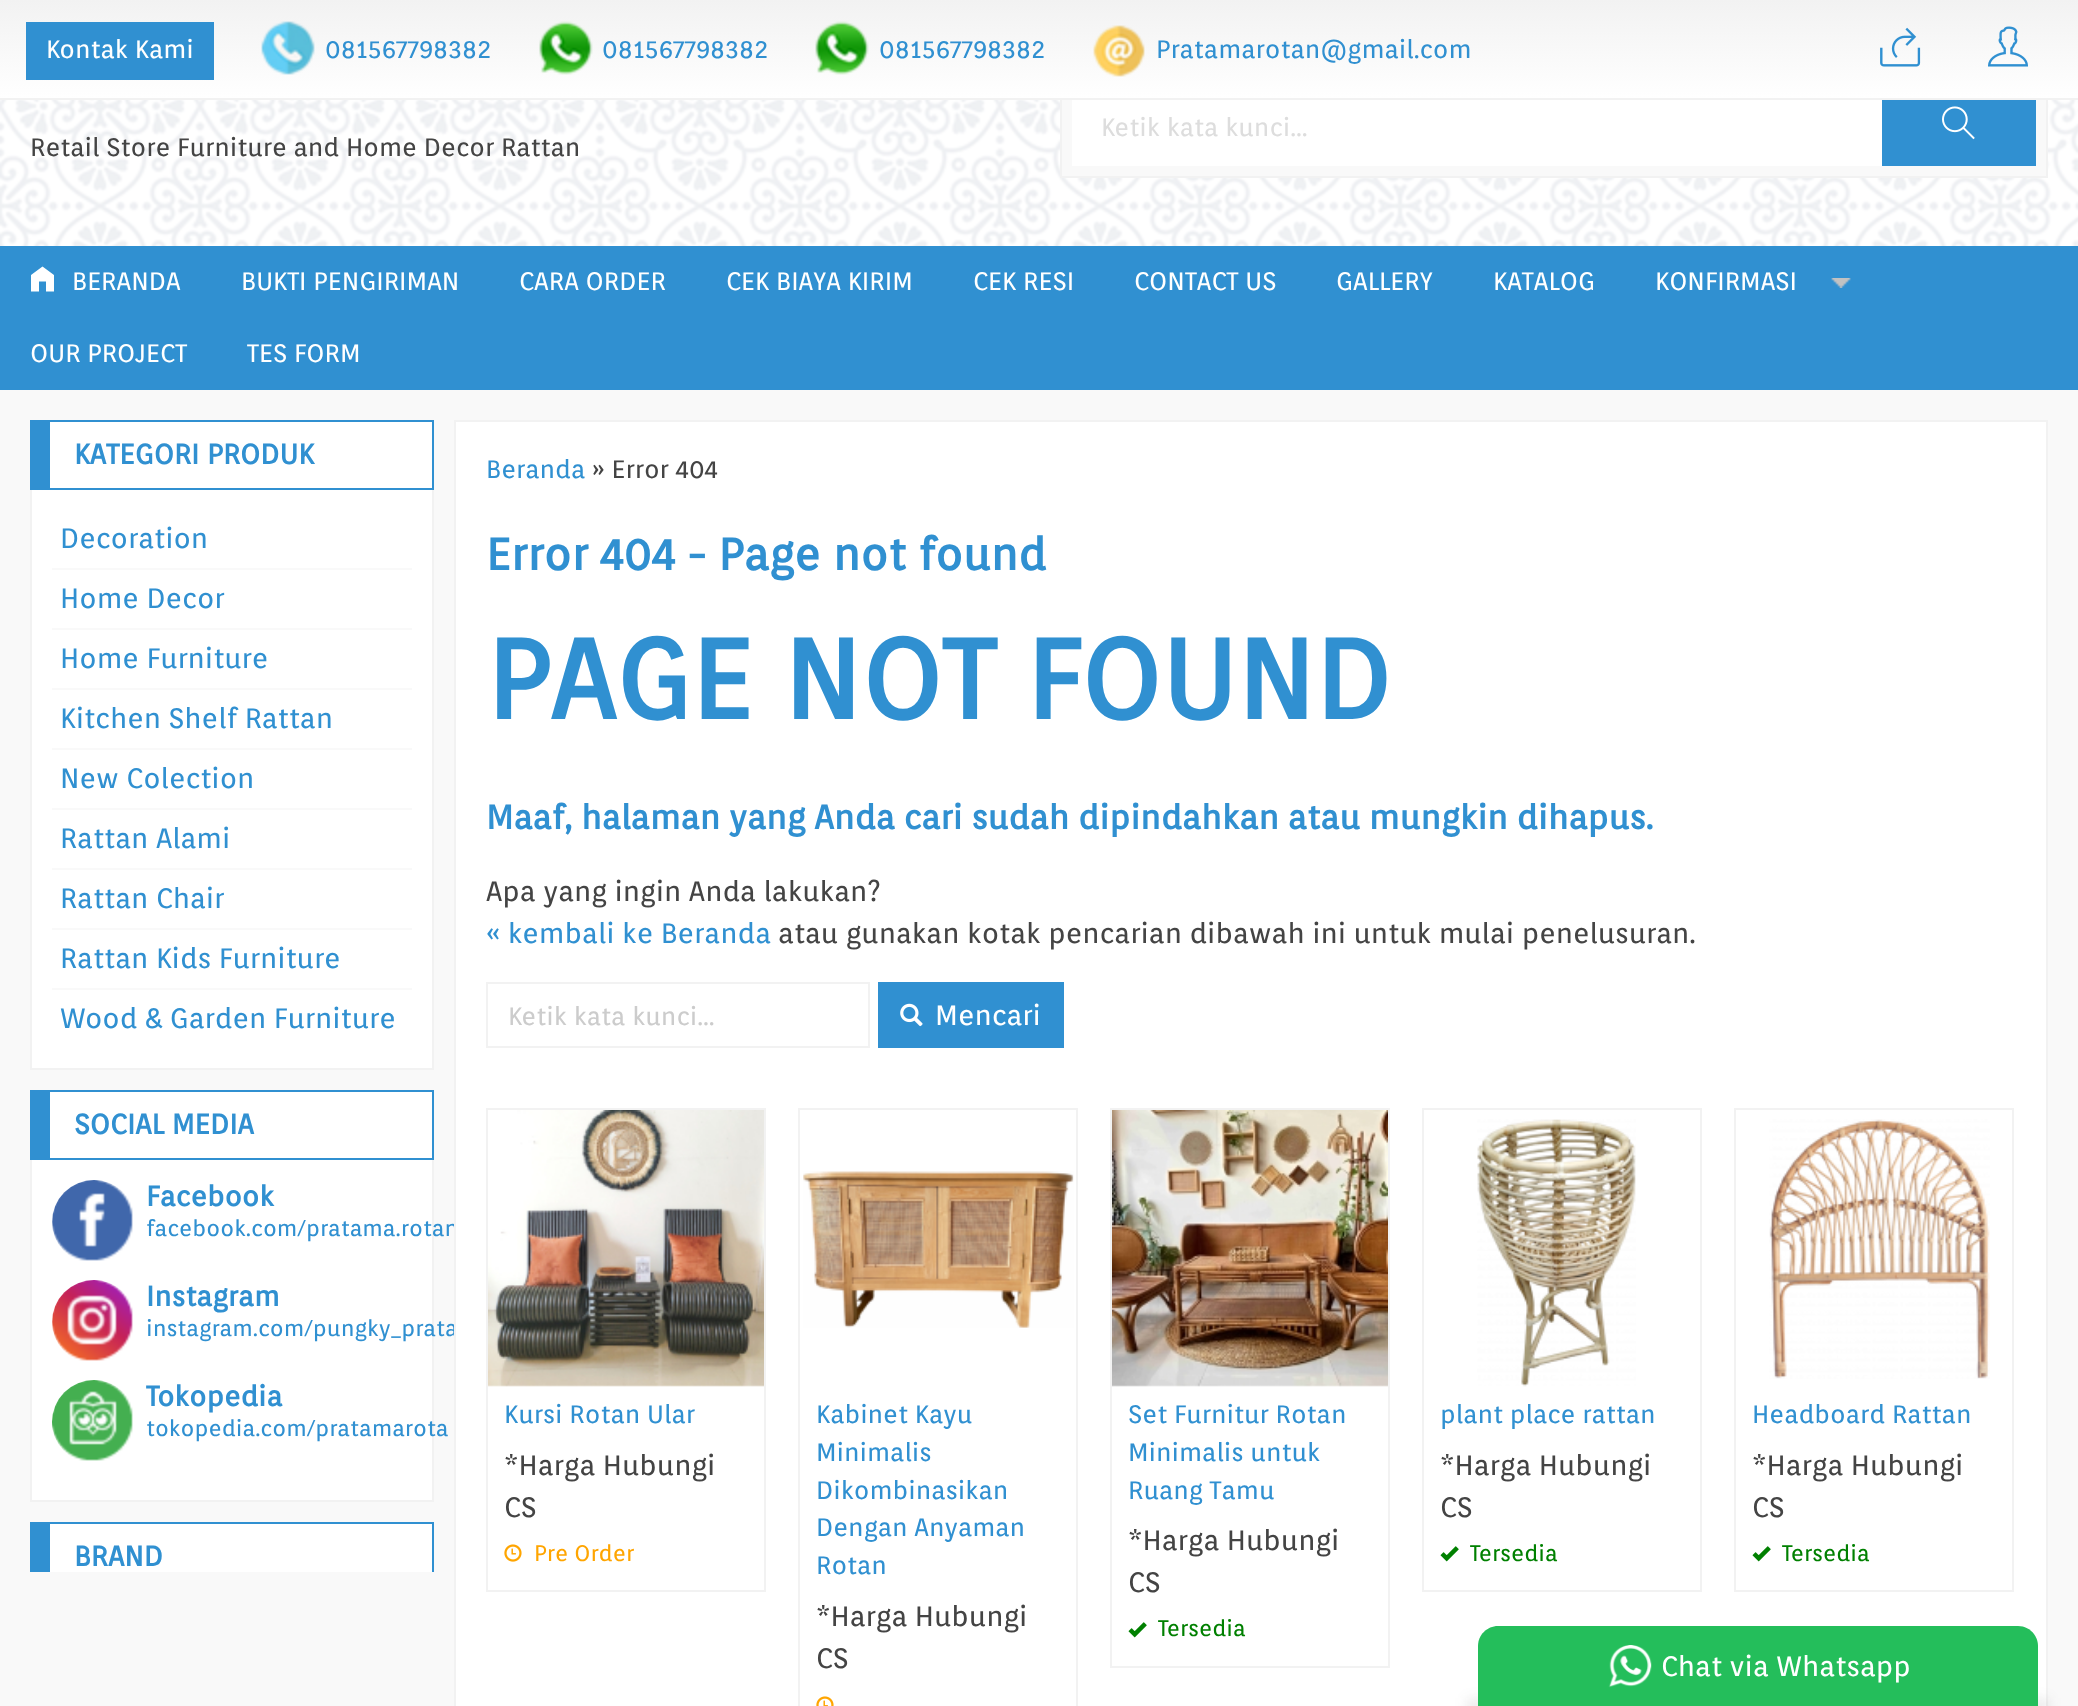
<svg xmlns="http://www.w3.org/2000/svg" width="2078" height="1706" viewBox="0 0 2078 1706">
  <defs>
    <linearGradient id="g1" gradientUnits="userSpaceOnUse" x1="1039" y1="0" x2="1039" y2="98"><stop offset="0" stop-color="rgb(242,242,242)"/><stop offset="1" stop-color="rgb(255,255,255)"/></linearGradient>
    <linearGradient id="g2" gradientUnits="userSpaceOnUse" x1="1039" y1="98" x2="1039" y2="196"><stop offset="0" stop-color="rgb(242,242,242)"/><stop offset="1" stop-color="rgb(255,255,255)"/></linearGradient>
  </defs>
  <rect width="100%" height="100%" fill="rgb(255,255,255)"/>
  <image x="0" y="100" width="2078" height="146" href="pic6.png"/>
  <rect x="1062" y="100" width="984" height="76" fill="rgb(249,249,249)"/>
  <rect x="1061" y="75" width="986" height="102" fill="none" stroke="rgb(242,242,242)" stroke-width="2"/>
  <rect x="0" y="0" width="2078" height="98" fill="url(#g1)"/>
  <rect x="0" y="98" width="2078" height="2" fill="url(#g2)"/>
  <rect x="26" y="22" width="188" height="58" fill="rgb(48,144,209)"/>
  <text x="46" y="58" font-family="Orienta" font-size="25.2" fill="rgb(255,255,255)">Kontak Kami</text>
  <image x="261" y="21" width="54" height="54" href="pic1.png"/>
  <text x="325" y="58" font-family="Orienta" font-size="25.2" fill="rgb(48,144,209)">081567798382</text>
  <image x="539" y="21" width="54" height="54" href="pic2.png"/>
  <text x="602" y="58" font-family="Orienta" font-size="25.2" fill="rgb(48,144,209)">081567798382</text>
  <image x="815" y="21" width="54" height="54" href="pic2.png"/>
  <text x="879" y="58" font-family="Orienta" font-size="25.2" fill="rgb(48,144,209)">081567798382</text>
  <image x="1093" y="25" width="52" height="52" href="pic3.png"/>
  <text x="1156" y="58" font-family="Orienta" font-size="25.2" fill="rgb(48,144,209)">Pratamarotan@gmail.com</text>
  <image x="1880" y="27" width="41" height="40" href="pic4.png"/>
  <image x="1988" y="26" width="40" height="41" href="pic5.png"/>
  <rect x="1072" y="100" width="810" height="66" fill="rgb(255,255,255)"/>
  <text x="1101" y="136" font-family="Orienta" font-size="25.2" fill="rgb(221,221,221)">Ketik kata kunci...</text>
  <rect x="1882" y="100" width="154" height="66" fill="rgb(48,144,209)"/>
  <image x="1942" y="106" width="33" height="34" href="pic7.png"/>
  <text x="30" y="156" font-family="Orienta" font-size="25.2" fill="rgb(68,68,68)">Retail Store Furniture and Home Decor Rattan</text>
  <rect x="0" y="246" width="2078" height="144" fill="rgb(48,144,209)"/>
  <path d="M42.5 266.5L31 275V291.5H39V281.5H46V291.5H54V275Z" fill="rgb(255,255,255)"/>
  <g font-family="Orienta" font-size="25.2" fill="rgb(255,255,255)">
    <text x="72" y="290">BERANDA</text>
    <text x="241" y="290">BUKTI PENGIRIMAN</text>
    <text x="519" y="290">CARA ORDER</text>
    <text x="726" y="290">CEK BIAYA KIRIM</text>
    <text x="973" y="290">CEK RESI</text>
    <text x="1134" y="290">CONTACT US</text>
    <text x="1336" y="290">GALLERY</text>
    <text x="1493" y="290">KATALOG</text>
  </g>
  <image x="1831" y="278" width="20" height="10" href="pic8.png"/>
  <g font-family="Orienta" font-size="25.2" fill="rgb(255,255,255)">
    <text x="1655" y="290">KONFIRMASI</text>
    <text x="30" y="362">OUR PROJECT</text>
    <text x="247" y="362">TES FORM</text>
  </g>
  <rect x="0" y="390" width="2078" height="1316" fill="rgb(249,249,249)"/>
  <rect x="31" y="421" width="402" height="648" fill="rgb(255,255,255)" stroke="rgb(242,242,242)" stroke-width="2"/>
  <rect x="50" y="420" width="384" height="2" fill="rgb(48,144,209)"/>
  <rect x="432" y="420" width="2" height="70" fill="rgb(48,144,209)"/>
  <rect x="50" y="488" width="384" height="2" fill="rgb(48,144,209)"/>
  <rect x="30" y="420" width="20" height="70" fill="rgb(48,144,209)"/>
  <text x="74" y="464" font-family="Orienta" font-size="28" font-weight="bold" fill="rgb(48,144,209)">KATEGORI PRODUK</text>
  <rect x="52" y="568" width="360" height="2" fill="rgb(249,249,249)"/>
  <text x="60" y="548" font-family="Orienta" font-size="28" fill="rgb(48,144,209)">Decoration</text>
  <rect x="52" y="628" width="360" height="2" fill="rgb(249,249,249)"/>
  <text x="60" y="608" font-family="Orienta" font-size="28" fill="rgb(48,144,209)">Home Decor</text>
  <rect x="52" y="688" width="360" height="2" fill="rgb(249,249,249)"/>
  <text x="60" y="668" font-family="Orienta" font-size="28" fill="rgb(48,144,209)">Home Furniture</text>
  <rect x="52" y="748" width="360" height="2" fill="rgb(249,249,249)"/>
  <text x="60" y="728" font-family="Orienta" font-size="28" fill="rgb(48,144,209)">Kitchen Shelf Rattan</text>
  <rect x="52" y="808" width="360" height="2" fill="rgb(249,249,249)"/>
  <text x="60" y="788" font-family="Orienta" font-size="28" fill="rgb(48,144,209)">New Colection</text>
  <rect x="52" y="868" width="360" height="2" fill="rgb(249,249,249)"/>
  <text x="60" y="848" font-family="Orienta" font-size="28" fill="rgb(48,144,209)">Rattan Alami</text>
  <rect x="52" y="928" width="360" height="2" fill="rgb(249,249,249)"/>
  <text x="60" y="908" font-family="Orienta" font-size="28" fill="rgb(48,144,209)">Rattan Chair</text>
  <rect x="52" y="988" width="360" height="2" fill="rgb(249,249,249)"/>
  <g font-family="Orienta" font-size="28" fill="rgb(48,144,209)">
    <text x="60" y="968">Rattan Kids Furniture</text>
    <text x="60" y="1028">Wood &amp; Garden Furniture</text>
  </g>
  <rect x="31" y="1091" width="402" height="410" fill="rgb(255,255,255)" stroke="rgb(242,242,242)" stroke-width="2"/>
  <rect x="50" y="1090" width="384" height="2" fill="rgb(48,144,209)"/>
  <rect x="432" y="1090" width="2" height="70" fill="rgb(48,144,209)"/>
  <rect x="50" y="1158" width="384" height="2" fill="rgb(48,144,209)"/>
  <rect x="30" y="1090" width="20" height="70" fill="rgb(48,144,209)"/>
  <text x="74" y="1134" font-family="Orienta" font-size="28" font-weight="bold" fill="rgb(48,144,209)">SOCIAL MEDIA</text>
  <image x="52" y="1180" width="81" height="81" href="pic9.png"/>
  <text x="146" y="1206" font-family="Orienta" font-size="28" font-weight="bold" fill="rgb(48,144,209)">Facebook</text>
  <text x="146" y="1236" font-family="Orienta" font-size="22.4" fill="rgb(48,144,209)">facebook.com/pratama.rotan</text>
  <image x="52" y="1280" width="81" height="81" href="pic10.png"/>
  <text x="146" y="1306" font-family="Orienta" font-size="28" font-weight="bold" fill="rgb(48,144,209)">Instagram</text>
  <text x="146" y="1336" font-family="Orienta" font-size="22.4" fill="rgb(48,144,209)">instagram.com/pungky_prata</text>
  <image x="52" y="1380" width="81" height="81" href="pic11.png"/>
  <text x="146" y="1406" font-family="Orienta" font-size="28" font-weight="bold" fill="rgb(48,144,209)">Tokopedia</text>
  <text x="146" y="1436" font-family="Orienta" font-size="22.4" fill="rgb(48,144,209)">tokopedia.com/pratamarota</text>
  <rect x="50" y="1524" width="382" height="48" fill="rgb(255,255,255)"/>
  <rect x="50" y="1522" width="384" height="2" fill="rgb(48,144,209)"/>
  <rect x="432" y="1522" width="2" height="50" fill="rgb(48,144,209)"/>
  <rect x="30" y="1522" width="20" height="50" fill="rgb(48,144,209)"/>
  <text x="74" y="1566" font-family="Orienta" font-size="28" font-weight="bold" fill="rgb(48,144,209)">BRAND</text>
  <rect x="455" y="421" width="1592" height="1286" fill="rgb(255,255,255)" stroke="rgb(242,242,242)" stroke-width="2"/>
  <text x="486" y="478" font-family="Orienta" font-size="25.2" fill="rgb(48,144,209)">Beranda</text>
  <text x="592" y="478" font-family="Orienta" font-size="25.2" fill="rgb(68,68,68)">» Error 404</text>
  <text x="486" y="570" font-family="Orienta" font-size="44.75" font-weight="bold" fill="rgb(48,144,209)">Error 404 - Page not found</text>
  <text x="486" y="719" font-family="Orienta" font-size="112" font-weight="bold" fill="rgb(48,144,209)">PAGE NOT FOUND</text>
  <text x="486" y="829" word-spacing="-0.25" font-family="Orienta" font-size="33.6" font-weight="bold" fill="rgb(48,144,209)">Maaf, halaman yang Anda cari sudah dipindahkan atau mungkin dihapus.</text>
  <text x="486" y="901" font-family="Orienta" font-size="28" fill="rgb(68,68,68)">Apa yang ingin Anda lakukan?</text>
  <text x="486" y="943" font-family="Orienta" font-size="28" fill="rgb(48,144,209)">« kembali ke Beranda</text>
  <text x="778" y="943" font-family="Orienta" font-size="28" fill="rgb(68,68,68)">atau gunakan kotak pencarian dibawah ini untuk mulai penelusuran.</text>
  <rect x="487" y="983" width="382" height="64" fill="none" stroke="rgb(242,242,242)" stroke-width="2"/>
  <text x="508" y="1025" font-family="Orienta" font-size="25.2" fill="rgb(204,204,204)">Ketik kata kunci...</text>
  <rect x="878" y="982" width="186" height="66" fill="rgb(48,144,209)"/>
  <image x="900" y="1003" width="23" height="24" href="pic12.png"/>
  <text x="935" y="1025" font-family="Orienta" font-size="28" fill="rgb(255,255,255)">Mencari</text>
  <rect x="487" y="1109" width="278" height="482" fill="none" stroke="rgb(242,242,242)" stroke-width="2"/>
  <image x="488" y="1110" width="276" height="277" href="pic13.png"/>
  <text x="504" y="1423" font-family="Orienta" font-size="25.2" fill="rgb(48,144,209)">Kursi Rotan Ular</text>
  <g font-family="Orienta" font-size="28" fill="rgb(68,68,68)">
    <text>
      <tspan x="504" y="1475">*Harga Hubungi</tspan>
      <tspan x="504" y="1517">CS</tspan>
    </text>
  </g>
  <image x="504" y="1544" width="18" height="18" href="pic14.png"/>
  <text x="534" y="1561" font-family="Orienta" font-size="22.4" fill="rgb(255,165,0)">Pre Order</text>
  <rect x="799" y="1109" width="278" height="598" fill="none" stroke="rgb(242,242,242)" stroke-width="2"/>
  <image x="803" y="1171" width="271" height="157" href="pic15.png"/>
  <g font-family="Orienta" font-size="25.2" fill="rgb(48,144,209)">
    <text>
      <tspan x="816" y="1423">Kabinet Kayu</tspan>
      <tspan x="816" y="1461">Minimalis</tspan>
      <tspan x="816" y="1499">Dikombinasikan</tspan>
      <tspan x="816" y="1536">Dengan Anyaman</tspan>
      <tspan x="816" y="1574">Rotan</tspan>
    </text>
  </g>
  <g font-family="Orienta" font-size="28" fill="rgb(68,68,68)">
    <text>
      <tspan x="816" y="1626">*Harga Hubungi</tspan>
      <tspan x="816" y="1668">CS</tspan>
    </text>
  </g>
  <image x="816" y="1696" width="18" height="10" href="pic16.png"/>
  <rect x="1111" y="1109" width="278" height="558" fill="none" stroke="rgb(242,242,242)" stroke-width="2"/>
  <image x="1112" y="1110" width="276" height="277" href="pic17.png"/>
  <g font-family="Orienta" font-size="25.2" fill="rgb(48,144,209)">
    <text>
      <tspan x="1128" y="1423">Set Furnitur Rotan</tspan>
      <tspan x="1128" y="1461">Minimalis untuk</tspan>
      <tspan x="1128" y="1499">Ruang Tamu</tspan>
    </text>
  </g>
  <g font-family="Orienta" font-size="28" fill="rgb(68,68,68)">
    <text>
      <tspan x="1128" y="1550">*Harga Hubungi</tspan>
      <tspan x="1128" y="1592">CS</tspan>
    </text>
  </g>
  <image x="1128" y="1622" width="19" height="16" href="pic18.png"/>
  <text x="1158" y="1636" font-family="Orienta" font-size="22.4" fill="rgb(0,128,0)">Tersedia</text>
  <rect x="1423" y="1109" width="278" height="482" fill="none" stroke="rgb(242,242,242)" stroke-width="2"/>
  <image x="1477" y="1119" width="159" height="268" href="pic19.png"/>
  <text x="1440" y="1423" font-family="Orienta" font-size="25.2" fill="rgb(48,144,209)">plant place rattan</text>
  <g font-family="Orienta" font-size="28" fill="rgb(68,68,68)">
    <text>
      <tspan x="1440" y="1475">*Harga Hubungi</tspan>
      <tspan x="1440" y="1517">CS</tspan>
    </text>
  </g>
  <image x="1440" y="1546" width="19" height="16" href="pic18.png"/>
  <text x="1470" y="1561" font-family="Orienta" font-size="22.4" fill="rgb(0,128,0)">Tersedia</text>
  <rect x="1735" y="1109" width="278" height="482" fill="none" stroke="rgb(242,242,242)" stroke-width="2"/>
  <image x="1769" y="1119" width="221" height="260" href="pic20.png"/>
  <text x="1752" y="1423" font-family="Orienta" font-size="25.2" fill="rgb(48,144,209)">Headboard Rattan</text>
  <g font-family="Orienta" font-size="28" fill="rgb(68,68,68)">
    <text>
      <tspan x="1752" y="1475">*Harga Hubungi</tspan>
      <tspan x="1752" y="1517">CS</tspan>
    </text>
  </g>
  <image x="1752" y="1546" width="19" height="16" href="pic18.png"/>
  <text x="1782" y="1561" font-family="Orienta" font-size="22.4" fill="rgb(0,128,0)">Tersedia</text>
  <rect x="1466" y="1698" width="584" height="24" fill="rgba(51,51,51,0.09)" filter="blur(6px)"/>
  <path d="M1498 1626H2018C2029 1626 2038 1635 2038 1646V1706H1478V1646C1478 1635 1487 1626 1498 1626Z" fill="rgb(36,190,91)"/>
  <image x="1608" y="1645" width="44" height="43" href="pic21.png"/>
  <text x="1661" y="1676" font-family="Orienta" font-size="28" fill="rgb(255,255,255)">Chat via Whatsapp</text>
</svg>
